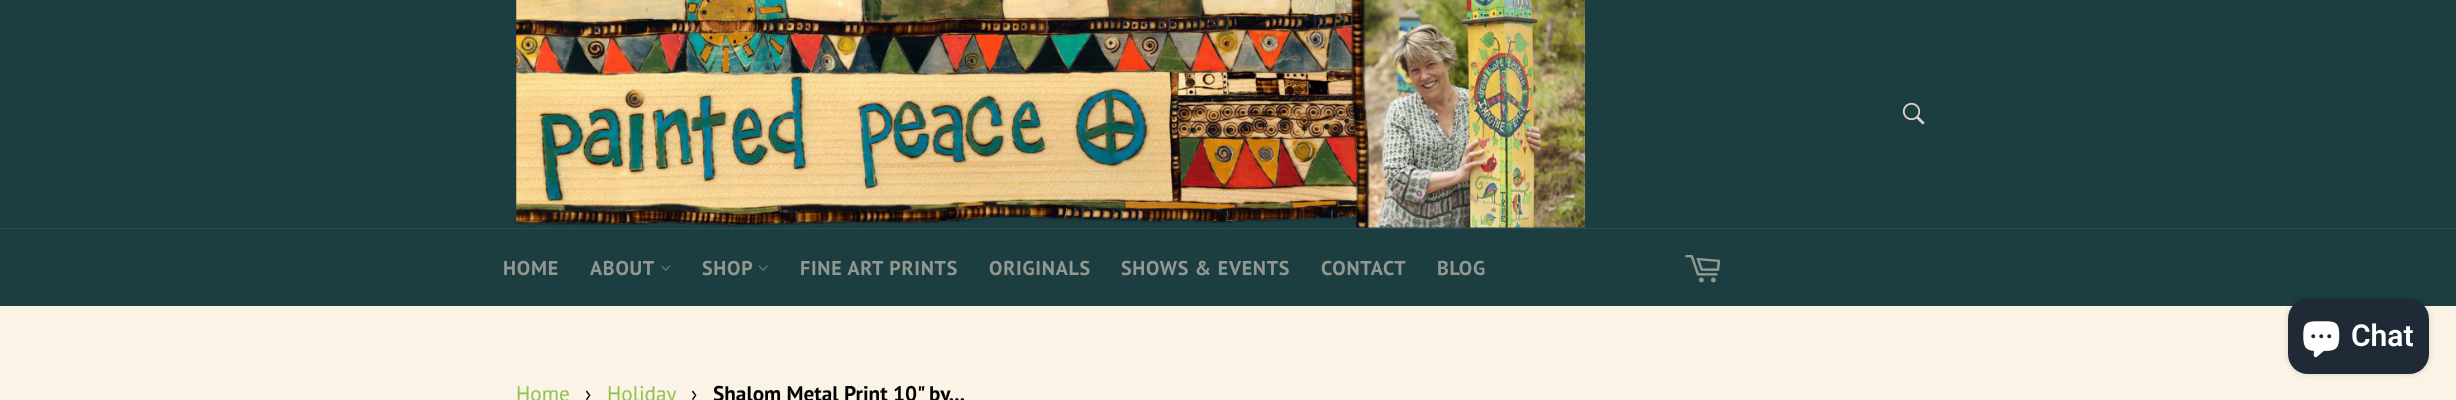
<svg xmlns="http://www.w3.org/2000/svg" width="2456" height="400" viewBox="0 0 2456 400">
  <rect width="100%" height="100%" fill="rgb(28,62,64)"/>
  <image x="516" y="0" width="1069" height="228" href="pic1.png"/>
  <image x="1902" y="102" width="23" height="23" href="pic2.png"/>
  <rect x="0" y="228" width="2456" height="1" fill="rgb(36,79,82)"/>
  <g font-family="PT Sans" font-size="20" font-weight="bold" letter-spacing="0.75" fill="rgb(145,152,146)">
    <text x="503" y="275">HOME</text>
    <text x="590" y="275">ABOUT</text>
  </g>
  <image x="661" y="265" width="9" height="6" href="pic3.png"/>
  <text x="702" y="275" font-family="PT Sans" font-size="20" font-weight="bold" letter-spacing="0.75" fill="rgb(145,152,146)">SHOP</text>
  <image x="758" y="265" width="10" height="6" href="pic4.png"/>
  <g font-family="PT Sans" font-size="20" font-weight="bold" letter-spacing="0.75" fill="rgb(145,152,146)">
    <text x="800" y="275">FINE ART PRINTS</text>
    <text x="989" y="275">ORIGINALS</text>
    <text x="1121" y="275">SHOWS &amp; EVENTS</text>
    <text x="1321" y="275">CONTACT</text>
    <text x="1437" y="275">BLOG</text>
  </g>
  <image x="1685" y="255" width="36" height="28" href="pic5.png"/>
  <rect x="0" y="306" width="2456" height="94" fill="rgb(250,243,230)"/>
  <rect x="2288" y="299" width="141" height="75" rx="20" fill="rgba(0,0,0,0.15)" filter="blur(3px)"/>
  <rect x="2288" y="299" width="141" height="75" rx="20" fill="rgb(32,42,54)"/>
  <image x="2303" y="321" width="37" height="37" href="pic6.png"/>
  <text x="2351" y="346" font-family="Roboto" font-size="30" font-weight="600" fill="rgb(255,255,255)">Chat</text>
  <text x="516" y="401" font-family="PT Sans" font-size="21.25" fill="rgb(147,194,79)">Home</text>
  <text x="585" y="401" font-family="PT Sans" font-size="21.25" fill="rgb(3,3,3)">›</text>
  <text x="607" y="401" font-family="PT Sans" font-size="21.25" fill="rgb(147,194,79)">Holiday</text>
  <text x="691" y="401" font-family="PT Sans" font-size="21.25" fill="rgb(3,3,3)">›</text>
  <text x="713" y="401" font-family="PT Sans" font-size="21.25" font-weight="bold" fill="rgb(3,3,3)">Shalom Metal Print 10" by...</text>
</svg>
